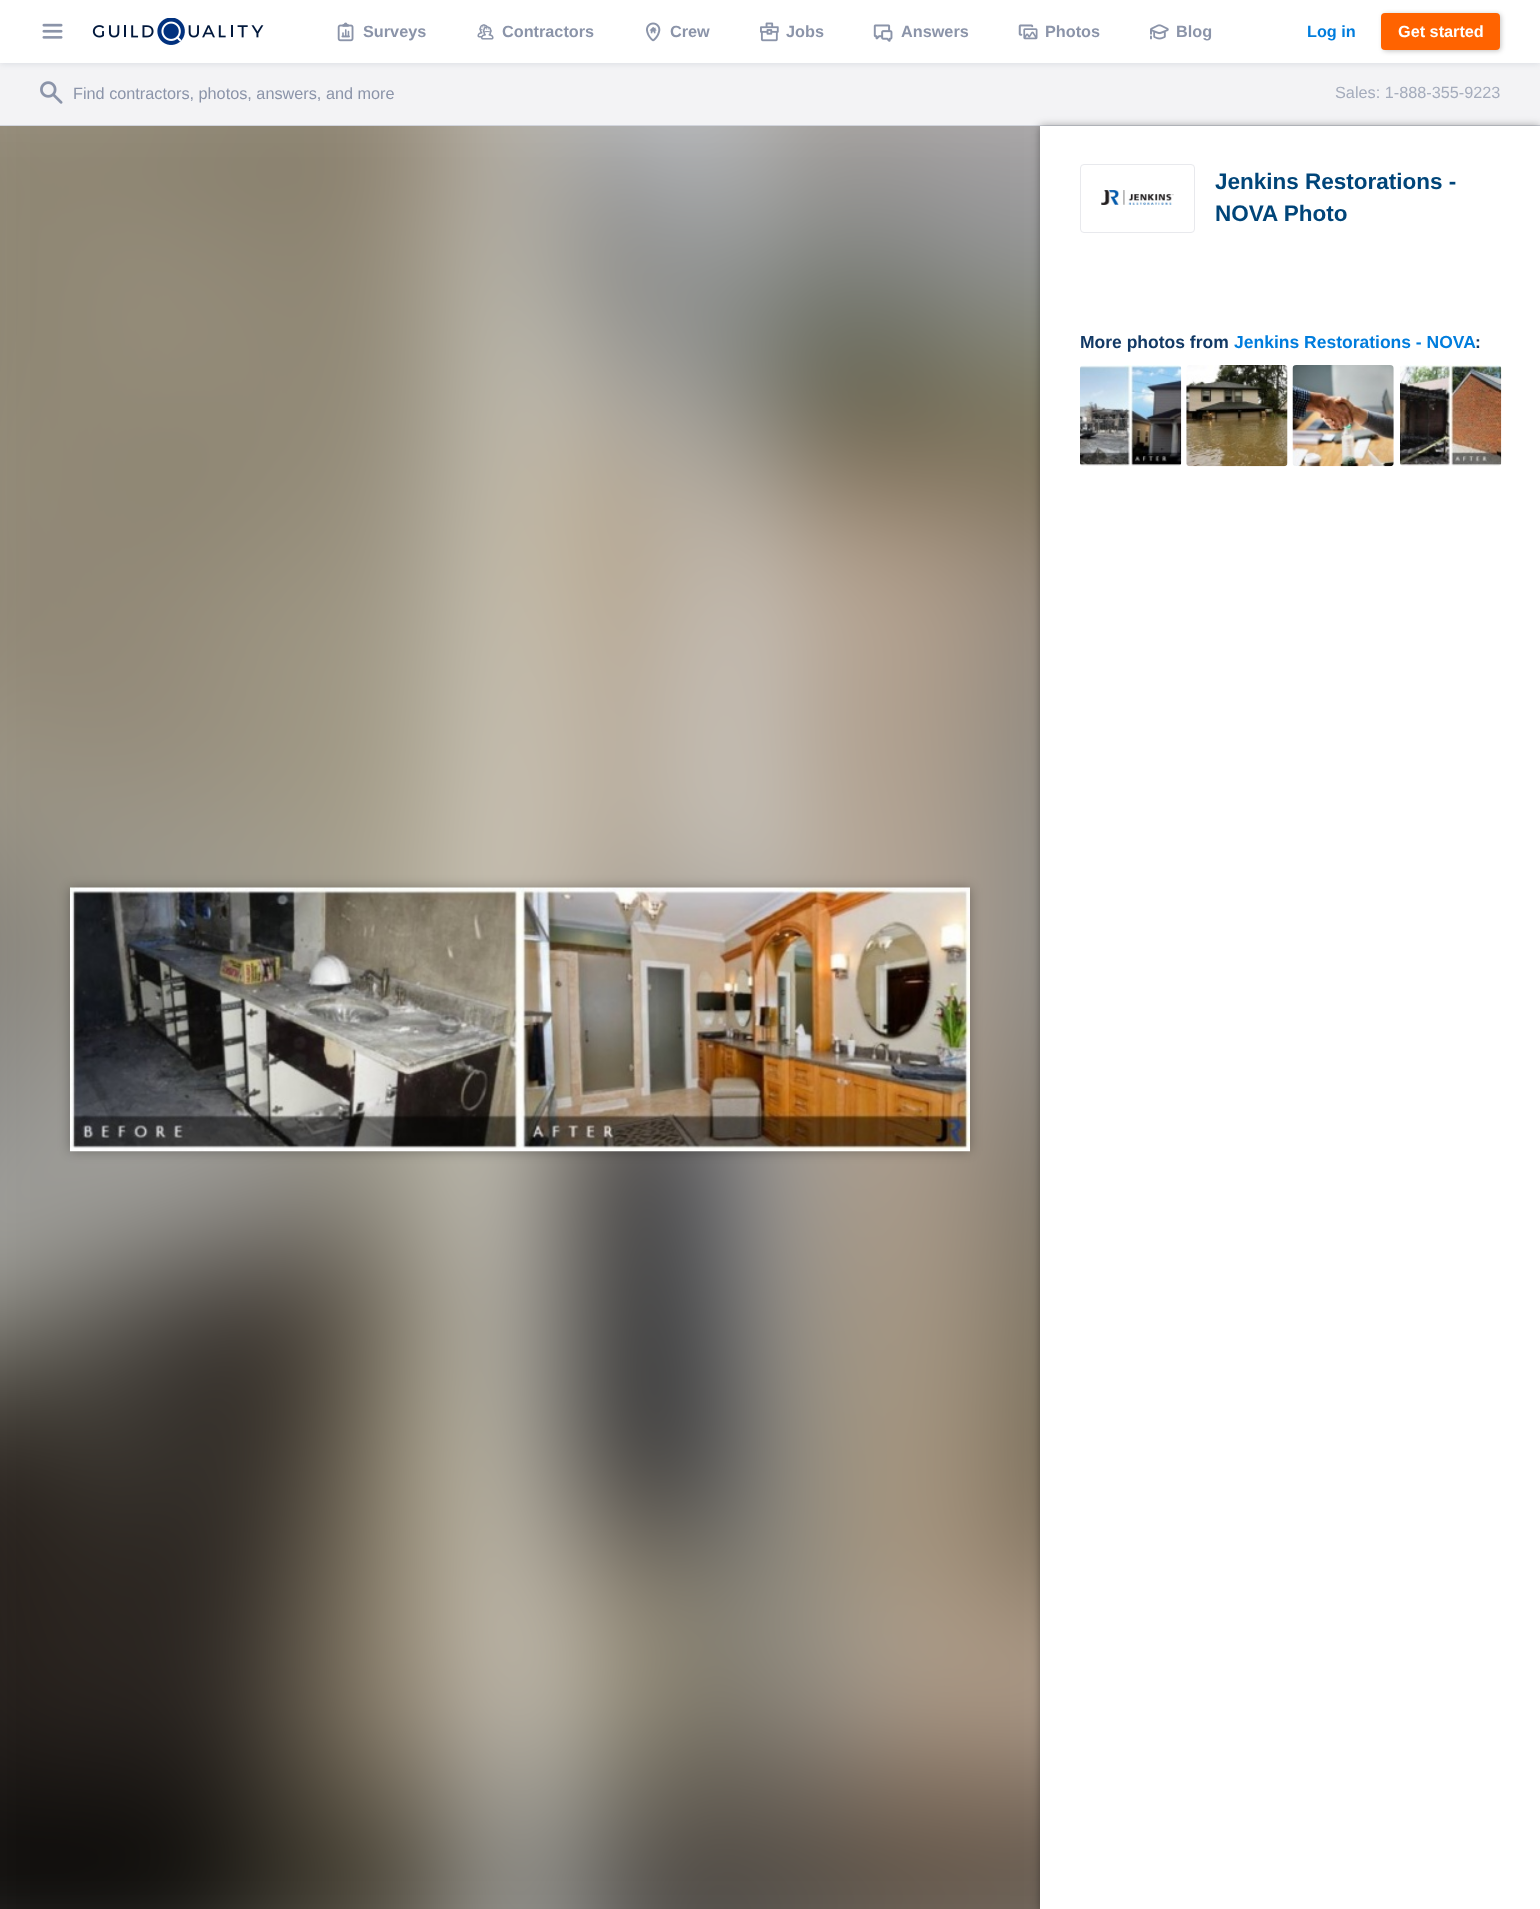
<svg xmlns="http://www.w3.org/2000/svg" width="1540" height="1909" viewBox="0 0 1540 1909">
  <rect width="100%" height="100%" fill="rgb(255,255,255)"/>
  <rect x="0" y="63" width="1540" height="62" fill="rgb(243,243,245)"/>
  <rect x="0" y="1" width="1540" height="63" fill="rgba(51,74,109,0.12)" filter="blur(3px)"/>
  <rect x="0" y="0" width="1540" height="63" fill="rgb(255,255,255)"/>
  <image x="42" y="23" width="21" height="16" href="pic1.png"/>
  <image x="92" y="18" width="172" height="27" href="pic2.png"/>
  <image x="337" y="22" width="17" height="20" href="pic3.png"/>
  <text x="363" y="37" font-family="Liberation Sans" font-size="16.25" font-weight="bold" fill="rgb(139,148,169)">Surveys</text>
  <image x="477" y="24" width="17" height="16" href="pic4.png"/>
  <text x="502" y="37" font-family="Liberation Sans" font-size="16.25" font-weight="bold" fill="rgb(139,148,169)">Contractors</text>
  <image x="646" y="22" width="15" height="20" href="pic5.png"/>
  <text x="670" y="37" font-family="Liberation Sans" font-size="16.25" font-weight="bold" fill="rgb(139,148,169)">Crew</text>
  <image x="760" y="22" width="19" height="20" href="pic6.png"/>
  <text x="786" y="37" font-family="Liberation Sans" font-size="16.25" font-weight="bold" fill="rgb(139,148,169)">Jobs</text>
  <image x="873" y="24" width="20" height="18" href="pic7.png"/>
  <text x="901" y="37" font-family="Liberation Sans" font-size="16.25" font-weight="bold" fill="rgb(139,148,169)">Answers</text>
  <image x="1018" y="24" width="20" height="16" href="pic8.png"/>
  <text x="1045" y="37" font-family="Liberation Sans" font-size="16.25" font-weight="bold" fill="rgb(139,148,169)">Photos</text>
  <image x="1150" y="24" width="19" height="16" href="pic9.png"/>
  <text x="1176" y="37" font-family="Liberation Sans" font-size="16.25" font-weight="bold" fill="rgb(139,148,169)">Blog</text>
  <text x="1307" y="37" font-family="Liberation Sans" font-size="16.25" font-weight="bold" fill="rgb(0,125,221)">Log in</text>
  <rect x="1383" y="14" width="118" height="37" rx="4" fill="rgba(0,0,0,0.24)" filter="blur(2.5px)"/>
  <rect x="1381" y="13" width="119" height="37" rx="4" fill="rgb(255,99,0)"/>
  <text x="1398" y="37" font-family="Liberation Sans" font-size="16.25" font-weight="bold" fill="rgb(255,255,255)">Get started</text>
  <rect x="0" y="125" width="1540" height="1" fill="rgb(210,213,221)"/>
  <image x="40" y="81" width="23" height="23" href="pic10.png"/>
  <text x="73" y="99" font-family="Liberation Sans" font-size="16.25" fill="rgb(139,148,169)">Find contractors, photos, answers, and more</text>
  <text x="1335" y="98" font-family="Liberation Sans" font-size="16.25" fill="rgb(165,172,188)">Sales: 1-888-355-9223</text>
  <image x="0" y="126" width="1040" height="1783" href="pic11.png"/>
  <rect x="70" y="888" width="900" height="263" fill="rgba(1,2,2,0.3)" filter="blur(6px)"/>
  <image x="70" y="887" width="900" height="265" href="pic12.png"/>
  <rect x="1040" y="126" width="500" height="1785" fill="rgba(1,2,2,0.36)" filter="blur(4.5px)"/>
  <rect x="1040" y="126" width="500" height="1783" fill="rgb(255,255,255)"/>
  <rect x="1080.5" y="164.5" width="114" height="68" rx="3.5" fill="none" stroke="rgb(232,233,237)"/>
  <image x="1101" y="190" width="73" height="15" href="pic13.png"/>
  <g font-family="Liberation Sans" font-size="22.5" font-weight="bold" fill="rgb(0,69,121)">
    <text>
      <tspan x="1215" y="189">Jenkins Restorations -</tspan>
      <tspan x="1215" y="221">NOVA Photo</tspan>
    </text>
  </g>
  <text x="1080" y="348" font-family="Liberation Sans" font-size="17.5" font-weight="bold" fill="rgb(18,57,101)">More photos from</text>
  <text x="1234" y="348" font-family="Liberation Sans" font-size="17.5" font-weight="bold" fill="rgb(0,125,221)">Jenkins Restorations - NOVA</text>
  <text x="1475" y="348" font-family="Liberation Sans" font-size="17.5" font-weight="bold" fill="rgb(18,57,101)">:</text>
  <image x="1080" y="365" width="102" height="101" href="pic14.png"/>
  <image x="1186" y="365" width="102" height="102" href="pic15.png"/>
  <image x="1292" y="365" width="102" height="102" href="pic16.png"/>
  <image x="1400" y="365" width="102" height="101" href="pic17.png"/>
</svg>
